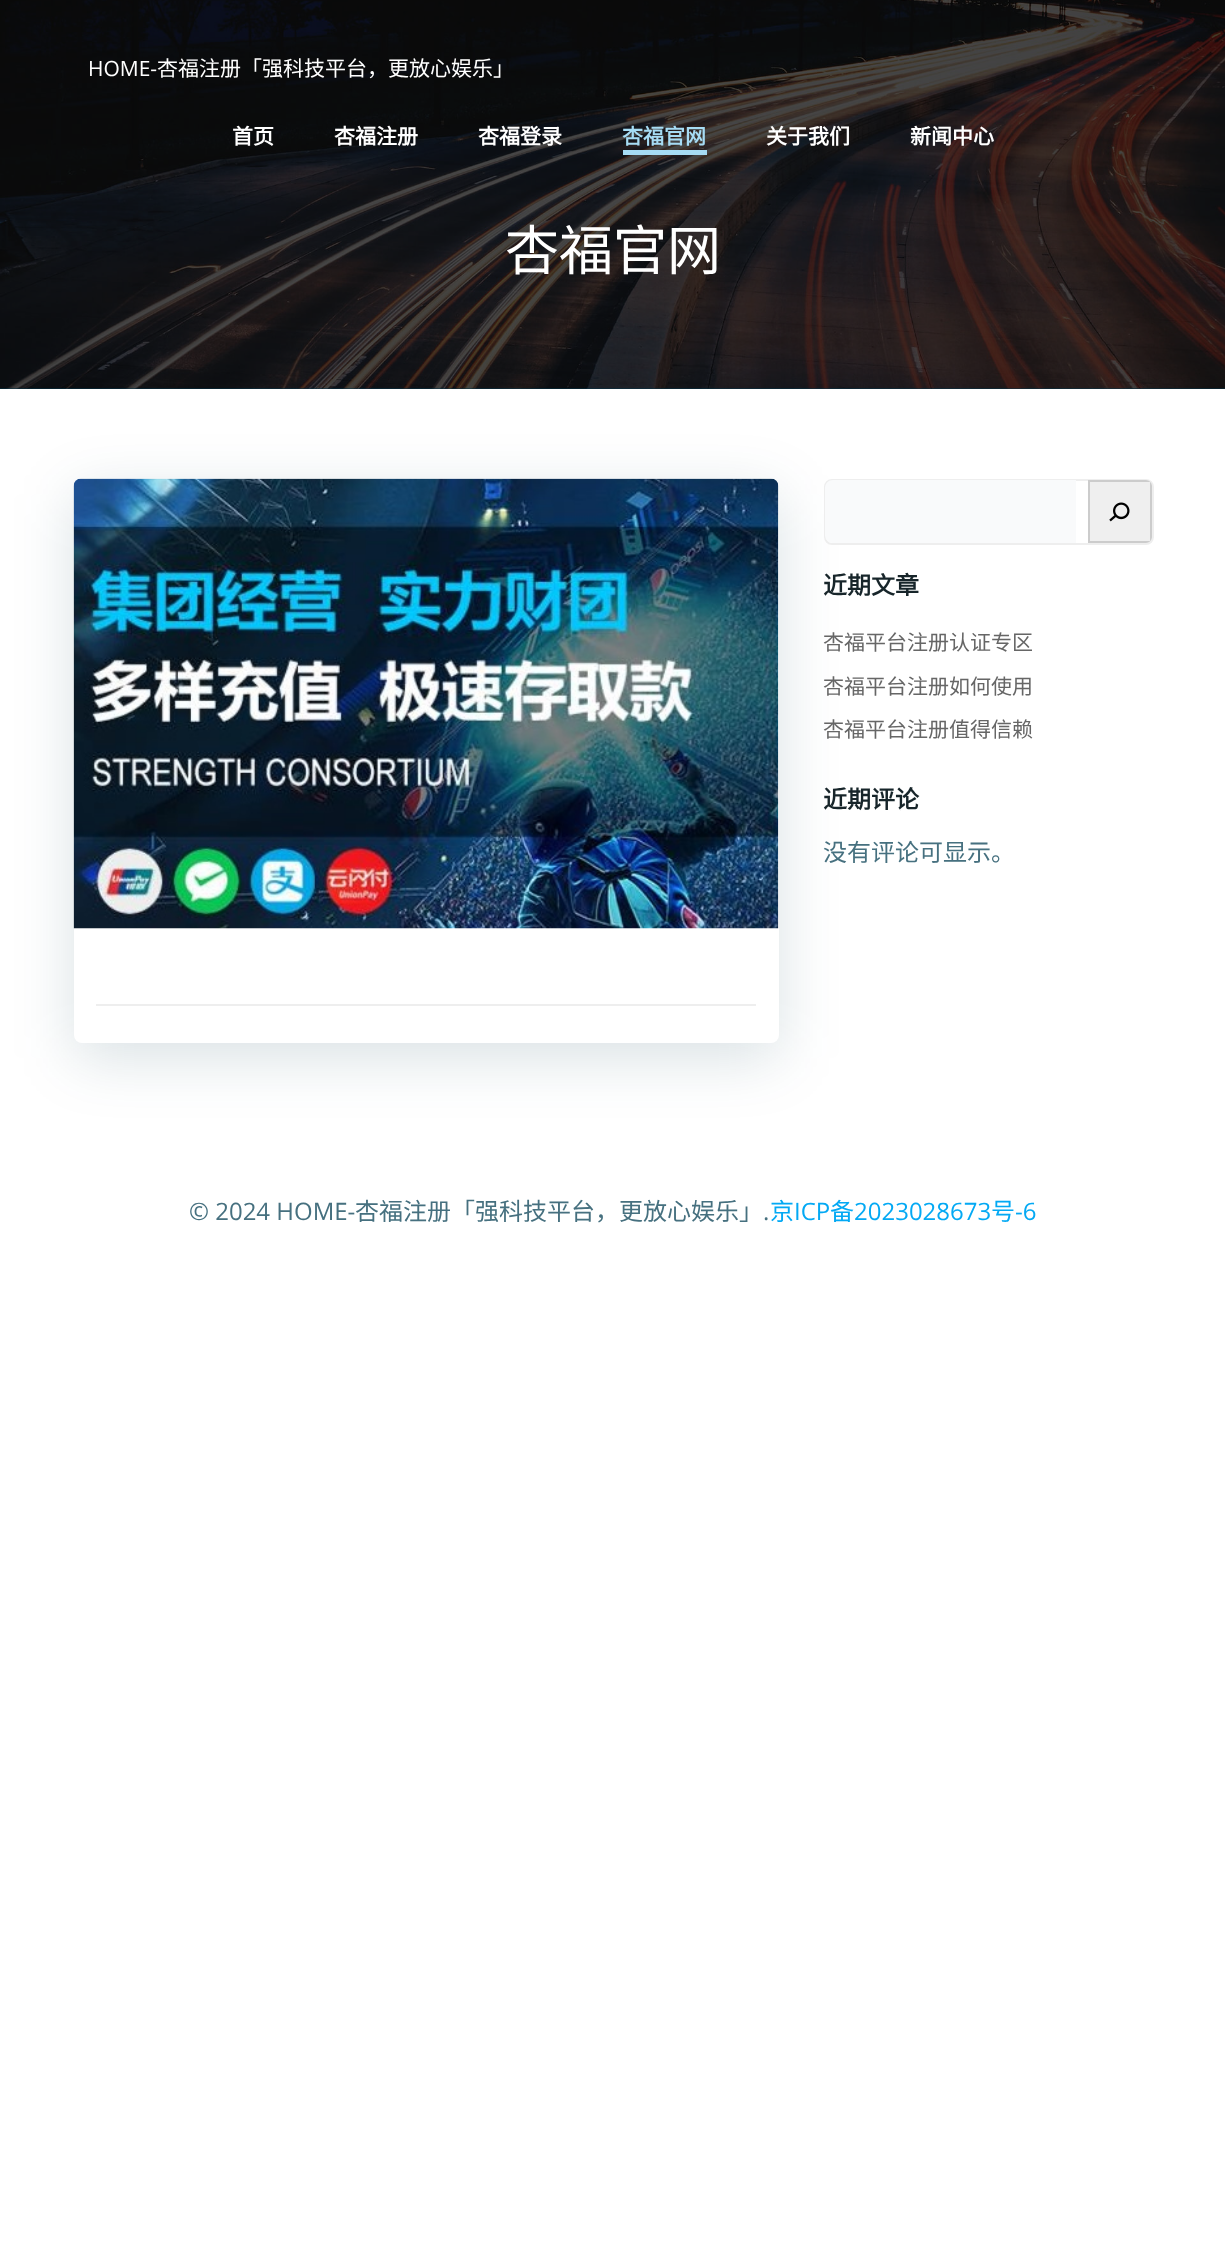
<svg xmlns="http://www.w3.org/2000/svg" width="1225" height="2256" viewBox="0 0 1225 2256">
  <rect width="100%" height="100%" fill="rgb(255,255,255)"/>
  <rect x="0" y="388" width="1225" height="1" fill="rgb(1,51,73)"/>
  <image x="0" y="0" width="1225" height="389" href="pic1.png"/>
  <text x="88" y="76" font-family="Open Sans" font-size="21" fill="rgb(255,255,255)">HOME-</text>
  <text x="157" y="76" font-family="Noto Sans CJK SC" font-size="21" fill="rgb(255,255,255)">杏福注册「强科技平台，更放心娱乐」</text>
  <g font-family="Noto Sans CJK SC" font-size="21" font-weight="bold" fill="rgb(255,255,255)">
    <text x="232" y="144">首页</text>
    <text x="334" y="144">杏福注册</text>
    <text x="478" y="144">杏福登录</text>
  </g>
  <text x="622" y="144" font-family="Noto Sans CJK SC" font-size="21" font-weight="bold" fill="rgb(166,220,244)">杏福官网</text>
  <rect x="623" y="150" width="84" height="5" fill="rgb(166,220,244)"/>
  <g font-family="Noto Sans CJK SC" font-size="21" font-weight="bold" fill="rgb(255,255,255)">
    <text x="766" y="144">关于我们</text>
    <text x="910" y="144">新闻中心</text>
  </g>
  <text x="505" y="270" font-family="Noto Sans CJK SC" font-size="54" fill="rgb(255,255,255)">杏福官网</text>
  <rect x="74" y="494" width="705" height="564" rx="8" fill="rgba(1,51,74,0.15)" filter="blur(30px)"/>
  <rect x="74" y="479" width="705" height="564" rx="8" fill="rgb(255,255,255)"/>
  <image x="73" y="478" width="706" height="451" href="pic2.png"/>
  <rect x="96" y="1004" width="660" height="2" fill="rgb(238,238,238)"/>
  <rect x="825" y="480" width="328" height="64" rx="7" fill="none" stroke="rgb(238,238,238)" stroke-width="2"/>
  <path d="M833 480H1076V543H833C828.5 543 825 539.5 825 535V488C825 483.5 828.5 480 833 480Z" fill="rgb(249,250,251)"/>
  <path d="M1088 480H1146C1149.5 480 1152 482.5 1152 486V537C1152 540.5 1149.5 543 1146 543H1088Z" fill="rgb(239,239,239)"/>
  <path d="M1088 480V543H1146C1149 543 1152 540 1152 537V486C1152 483 1149 480 1146 480ZM1090 482V541H1150V482Z" fill="rgb(204,204,204)" fill-rule="evenodd"/>
  <image x="1109" y="502" width="21" height="20" href="pic3.png"/>
  <text x="823" y="594" font-family="Noto Sans CJK SC" font-size="24" font-weight="bold" fill="rgb(23,37,42)">近期文章</text>
  <g font-family="Noto Sans CJK SC" font-size="21" fill="rgb(102,102,102)">
    <text x="823" y="650">杏福平台注册认证专区</text>
    <text x="823" y="694">杏福平台注册如何使用</text>
    <text x="823" y="737">杏福平台注册值得信赖</text>
  </g>
  <text x="823" y="808" font-family="Noto Sans CJK SC" font-size="24" font-weight="bold" fill="rgb(23,37,42)">近期评论</text>
  <text x="823" y="861" font-family="Noto Sans CJK SC" font-size="24" fill="rgb(70,112,127)">没有评论可显示。</text>
  <text x="189" y="1220" font-family="Open Sans" font-size="24" fill="rgb(70,112,127)">© 2024 HOME-</text>
  <text x="355" y="1220" font-family="Noto Sans CJK SC" font-size="24" fill="rgb(70,112,127)">杏福注册「强科技平台，更放心娱乐」</text>
  <text x="763" y="1220" font-family="Open Sans" font-size="24" fill="rgb(70,112,127)">.</text>
  <text x="770" y="1220" font-family="Noto Sans CJK SC" font-size="24" fill="rgb(3,169,244)">京</text>
  <text x="794" y="1220" font-family="Open Sans" font-size="24" fill="rgb(3,169,244)">ICP</text>
  <text x="830" y="1220" font-family="Noto Sans CJK SC" font-size="24" fill="rgb(3,169,244)">备</text>
  <text x="854" y="1220" font-family="Open Sans" font-size="24" fill="rgb(3,169,244)">2023028673</text>
  <text x="991" y="1220" font-family="Noto Sans CJK SC" font-size="24" fill="rgb(3,169,244)">号</text>
  <text x="1015" y="1220" font-family="Open Sans" font-size="24" fill="rgb(3,169,244)">-6</text>
</svg>
